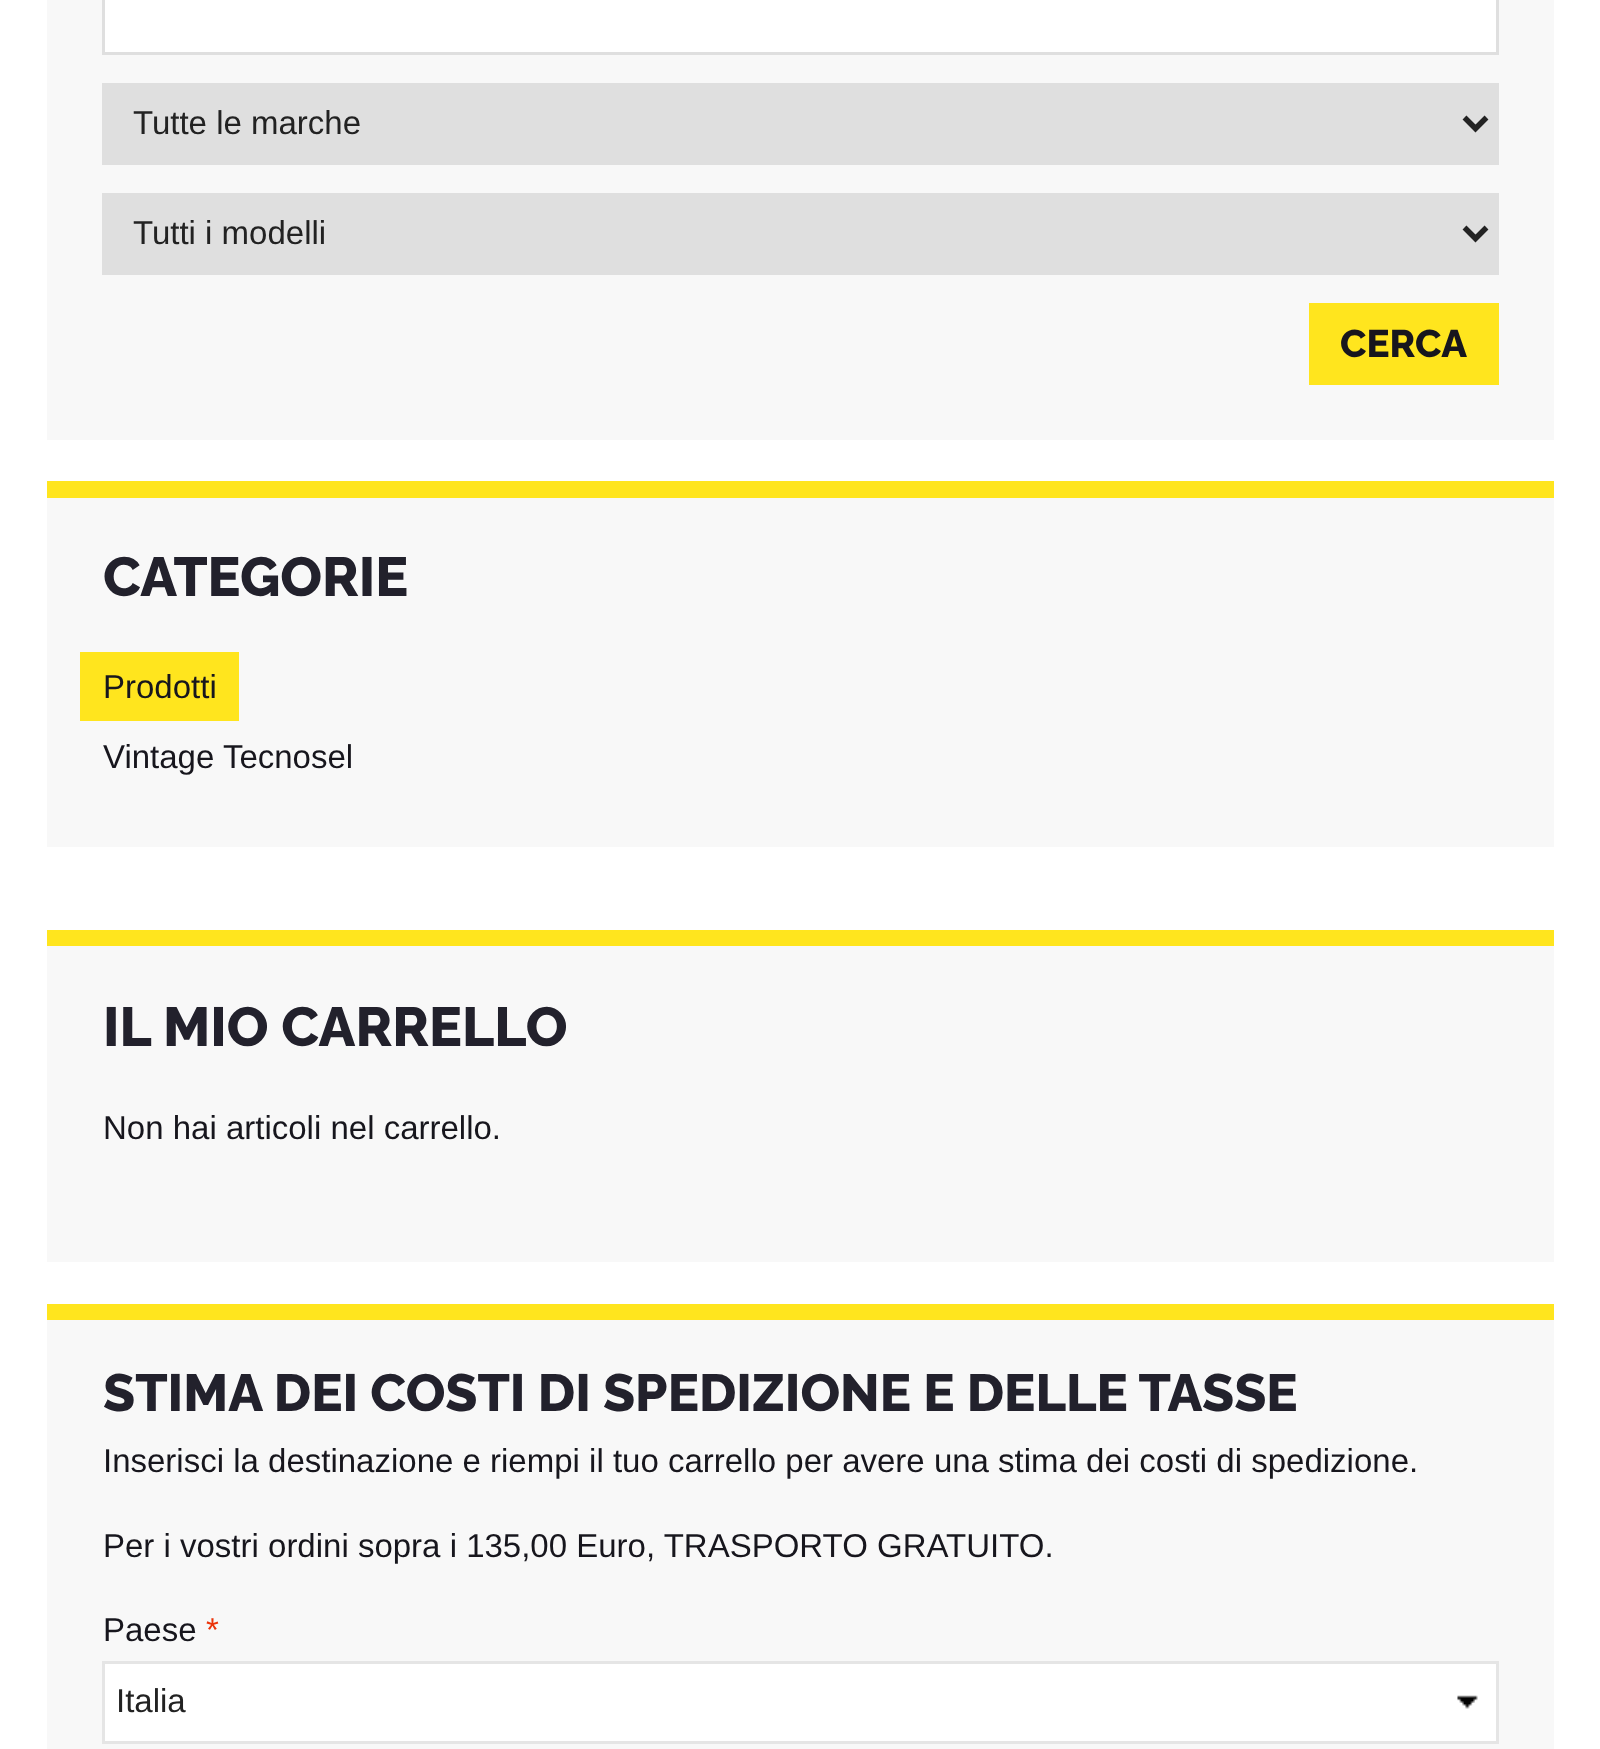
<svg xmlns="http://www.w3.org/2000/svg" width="1600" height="1749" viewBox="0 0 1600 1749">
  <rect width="100%" height="100%" fill="rgb(255,255,255)"/>
  <rect x="47" y="0" width="1507" height="440" fill="rgb(248,248,248)"/>
  <rect x="103.5" y="-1.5" width="1394" height="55" fill="rgb(255,255,255)" stroke="rgb(223,223,223)" stroke-width="3"/>
  <rect x="102" y="83" width="1397" height="82" fill="rgb(223,223,223)"/>
  <path d="M1464.5 117.5L1475.5 128.5L1486.5 117.5" fill="none" stroke="rgb(34,34,34)" stroke-width="5.5"/>
  <text x="133" y="134" font-family="Liberation Sans" font-size="33" fill="rgb(34,34,34)">Tutte le marche</text>
  <rect x="102" y="193" width="1397" height="82" fill="rgb(223,223,223)"/>
  <path d="M1464.5 227.5L1475.5 238.5L1486.5 227.5" fill="none" stroke="rgb(34,34,34)" stroke-width="5.5"/>
  <text x="133" y="244" font-family="Liberation Sans" font-size="33" fill="rgb(34,34,34)">Tutti i modelli</text>
  <rect x="1309" y="303" width="190" height="82" fill="rgb(255,229,30)"/>
  <text x="1340" y="357" font-family="Raleway" font-size="38.5" font-weight="800" fill="rgb(23,22,29)">CERCA</text>
  <rect x="47" y="498" width="1507" height="349" fill="rgb(248,248,248)"/>
  <rect x="47" y="481" width="1507" height="17" fill="rgb(255,229,30)"/>
  <text x="103" y="596" font-family="Raleway" font-size="55" font-weight="800" fill="rgb(34,33,44)">CATEGORIE</text>
  <rect x="80" y="652" width="159" height="69" fill="rgb(255,229,30)"/>
  <g font-family="Liberation Sans" font-size="33" fill="rgb(23,22,29)">
    <text x="103" y="698">Prodotti</text>
    <text x="103" y="768">Vintage Tecnosel</text>
  </g>
  <rect x="47" y="946" width="1507" height="316" fill="rgb(248,248,248)"/>
  <rect x="47" y="930" width="1507" height="16" fill="rgb(255,229,30)"/>
  <text x="103" y="1046" font-family="Raleway" font-size="55" font-weight="800" fill="rgb(34,33,44)">IL MIO CARRELLO</text>
  <text x="103" y="1139" font-family="Liberation Sans" font-size="33" fill="rgb(23,22,29)">Non hai articoli nel carrello.</text>
  <rect x="47" y="1320" width="1507" height="429" fill="rgb(248,248,248)"/>
  <rect x="47" y="1304" width="1507" height="16" fill="rgb(255,229,30)"/>
  <text x="103" y="1411" font-family="Raleway" font-size="52.25" font-weight="800" fill="rgb(34,33,44)">STIMA DEI COSTI DI SPEDIZIONE E DELLE TASSE</text>
  <g font-family="Liberation Sans" font-size="33" fill="rgb(23,22,29)">
    <text x="103" y="1472">Inserisci la destinazione e riempi il tuo carrello per avere una stima dei costi di spedizione.</text>
    <text x="103" y="1557">Per i vostri ordini sopra i 135,00 Euro, TRASPORTO GRATUITO.</text>
    <text x="103" y="1641">Paese</text>
  </g>
  <text x="206" y="1641" font-family="Liberation Sans" font-size="33" fill="rgb(235,52,10)">*</text>
  <rect x="105" y="1664" width="1391" height="77" fill="rgb(255,255,255)"/>
  <image x="1457" y="1695" width="21" height="14" href="pic1.png"/>
  <rect x="103.5" y="1662.5" width="1394" height="80" fill="none" stroke="rgb(229,229,229)" stroke-width="3"/>
  <text x="116" y="1712" font-family="Liberation Sans" font-size="33" fill="rgb(34,34,34)">Italia</text>
</svg>
